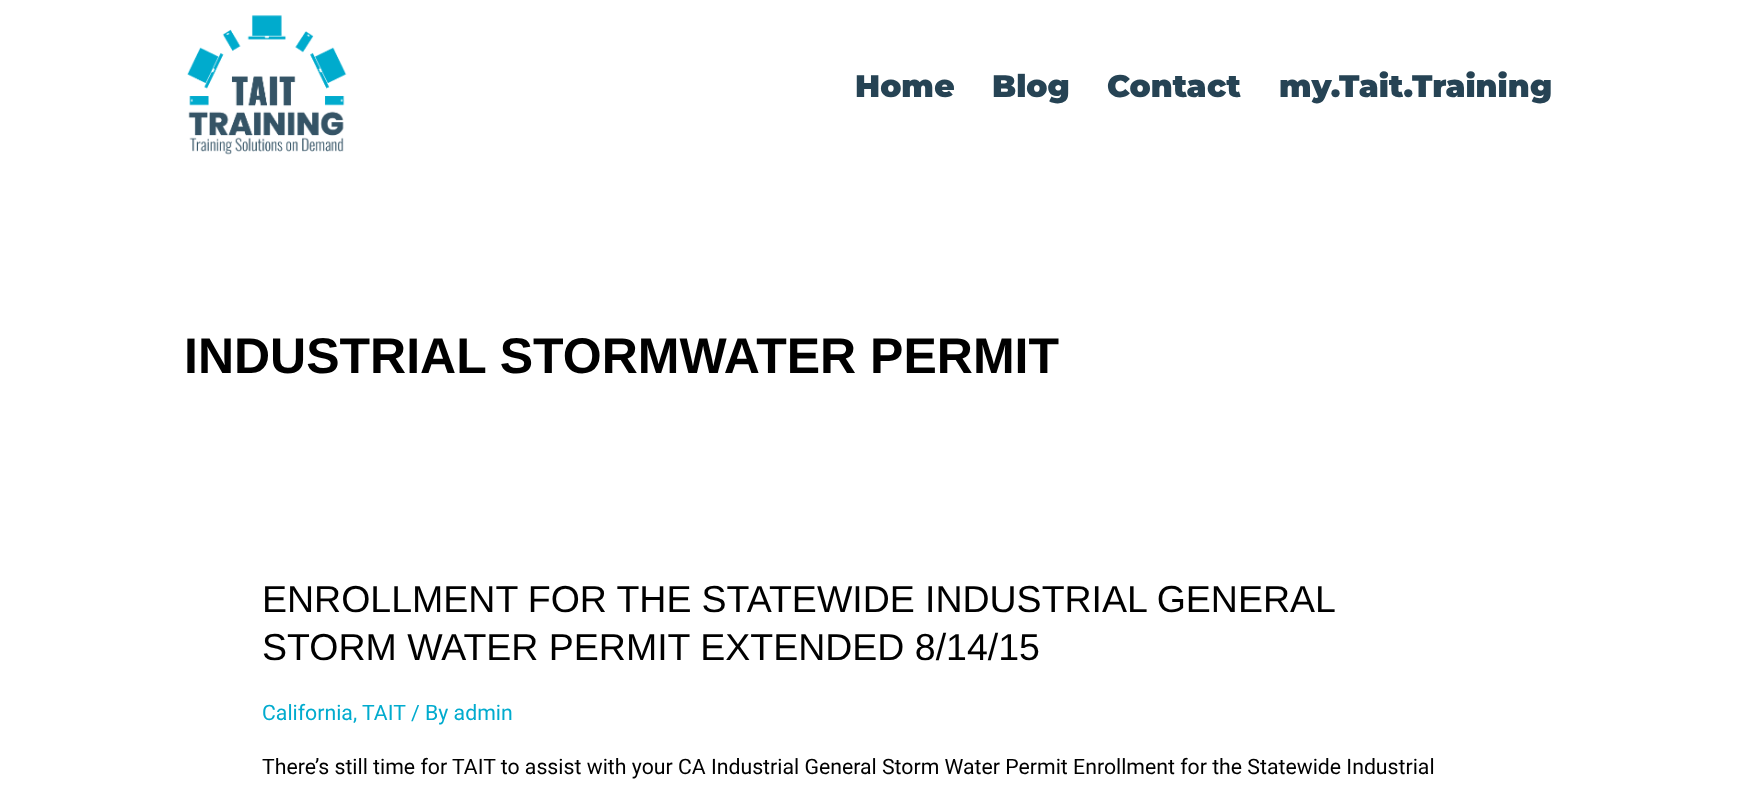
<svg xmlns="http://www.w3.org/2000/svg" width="1741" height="785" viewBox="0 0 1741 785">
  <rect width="100%" height="100%" fill="rgb(255,255,255)"/>
  <image x="187" y="15" width="160" height="140" href="pic1.png"/>
  <g font-family="Montserrat" font-size="31.25" font-weight="900" fill="rgb(38,67,84)">
    <text x="855" y="97">Home</text>
    <text x="992" y="97">Blog</text>
    <text x="1107" y="97">Contact</text>
    <text x="1279" y="97">my.Tait.Training</text>
  </g>
  <text x="184" y="373" font-family="Liberation Sans" font-size="50" font-weight="bold" fill="rgb(0,0,0)">INDUSTRIAL STORMWATER PERMIT</text>
  <g font-family="Liberation Sans" font-size="37.5" fill="rgb(0,0,0)">
    <text>
      <tspan x="262" y="612" word-spacing="-0.25">ENROLLMENT FOR THE STATEWIDE INDUSTRIAL GENERAL</tspan>
      <tspan x="262" y="660">STORM WATER PERMIT EXTENDED 8/14/15</tspan>
    </text>
  </g>
  <g font-family="Roboto" font-size="21.25" fill="rgb(1,171,206)">
    <text x="262" y="720">California,</text>
    <text x="362" y="720">TAIT</text>
    <text x="411" y="720">/ By admin</text>
  </g>
  <text x="262" y="774" font-family="Roboto" font-size="21.25" fill="rgb(0,0,0)">There’s still time for TAIT to assist with your CA Industrial General Storm Water Permit Enrollment for the Statewide Industrial</text>
</svg>
